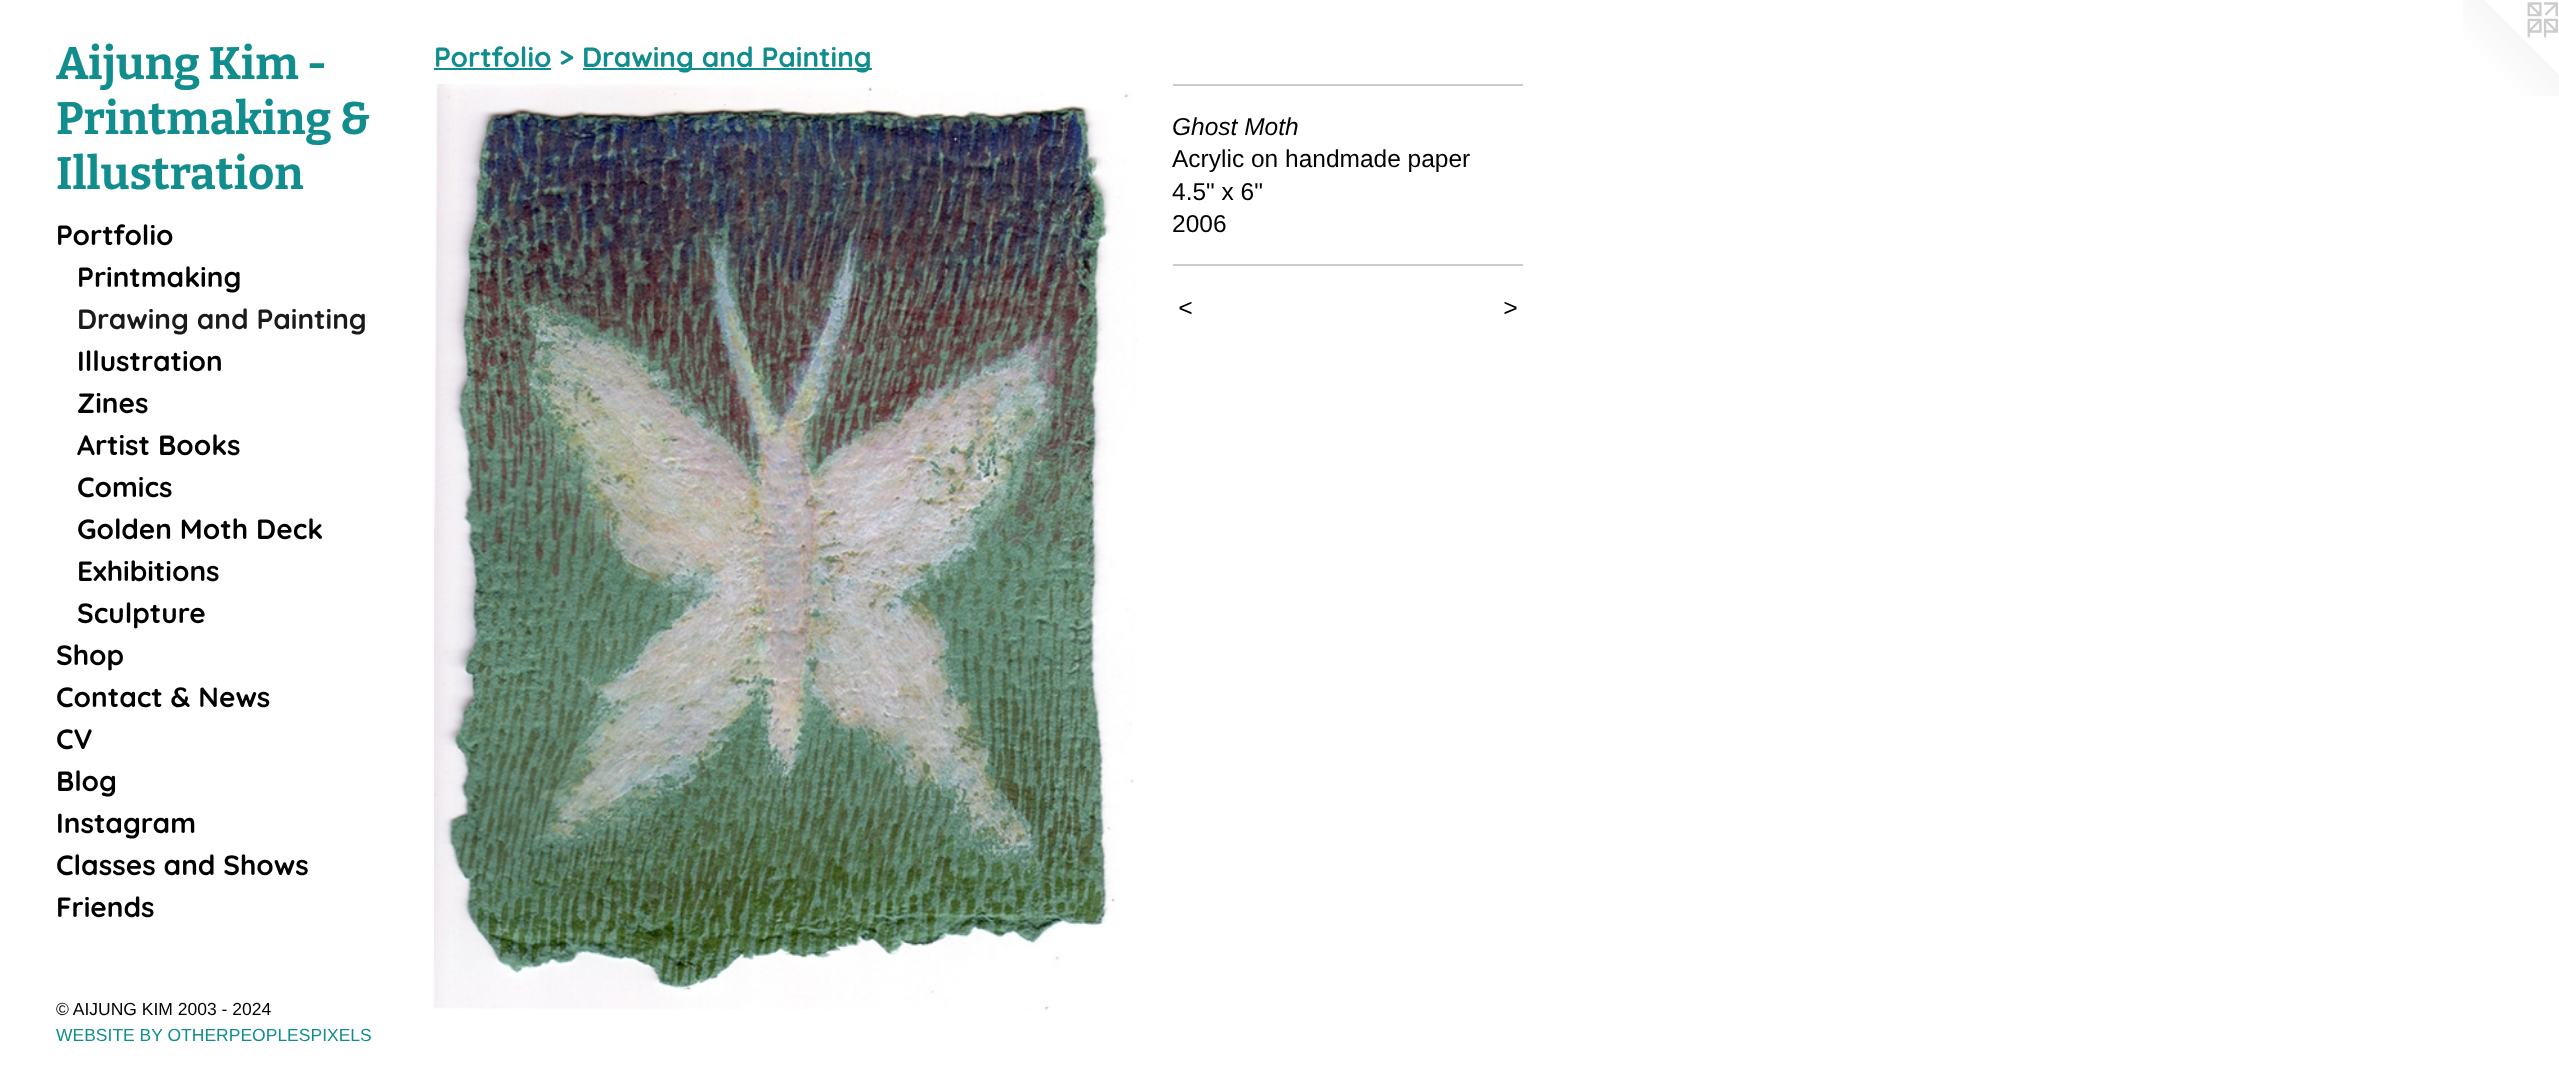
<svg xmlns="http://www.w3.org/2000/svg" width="2559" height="1087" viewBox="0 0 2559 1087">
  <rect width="100%" height="100%" fill="rgb(255,255,255)"/>
  <g font-family="Bitter" font-size="45.5" font-weight="100" fill="rgb(17,141,142)">
    <text>
      <tspan x="56" y="79">Aijung Kim -</tspan>
      <tspan x="56" y="134">Printmaking &amp;</tspan>
      <tspan x="56" y="189">Illustration</tspan>
    </text>
  </g>
  <g font-family="Quicksand" font-size="28" font-weight="300" fill="rgb(0,0,0)">
    <text x="56" y="245">Portfolio</text>
    <text x="77" y="287">Printmaking</text>
  </g>
  <text x="77" y="329" font-family="Quicksand" font-size="28" font-weight="300" fill="rgb(26,26,26)">Drawing and Painting</text>
  <g font-family="Quicksand" font-size="28" font-weight="300" fill="rgb(0,0,0)">
    <text>
      <tspan x="77" y="371">Illustration</tspan>
      <tspan x="77" y="413">Zines</tspan>
      <tspan x="77" y="455">Artist Books</tspan>
      <tspan x="77" y="497">Comics</tspan>
      <tspan x="77" y="539">Golden Moth Deck</tspan>
      <tspan x="77" y="581">Exhibitions</tspan>
      <tspan x="77" y="623">Sculpture</tspan>
    </text>
    <text>
      <tspan x="56" y="665">Shop</tspan>
      <tspan x="56" y="707">Contact &amp; News</tspan>
      <tspan x="56" y="749">CV</tspan>
      <tspan x="56" y="791">Blog</tspan>
      <tspan x="56" y="833">Instagram</tspan>
      <tspan x="56" y="875">Classes and Shows</tspan>
      <tspan x="56" y="917">Friends</tspan>
    </text>
  </g>
  <text x="56" y="1015" font-family="Liberation Sans" font-size="17.5" fill="rgb(0,0,0)">© AIJUNG KIM 2003 - 2024</text>
  <text x="56" y="1041" font-family="Liberation Sans" font-size="17.5" fill="rgb(17,141,142)">WEBSITE BY OTHERPEOPLESPIXELS</text>
  <text x="434" y="67" font-family="Quicksand" font-size="28" font-weight="300" fill="rgb(17,141,142)">Portfolio &gt;</text>
  <rect x="434" y="68" width="117" height="2" fill="rgb(17,141,142)"/>
  <rect x="583" y="68" width="289" height="2" fill="rgb(17,141,142)"/>
  <text x="582" y="67" font-family="Quicksand" font-size="28" font-weight="300" fill="rgb(17,141,142)">Drawing and Painting</text>
  <image x="434" y="84" width="704" height="926" href="pic1.png"/>
  <rect x="1173" y="84" width="350" height="2" fill="rgb(204,204,204)"/>
  <text x="1172" y="135" font-family="Liberation Sans" font-size="24.5" font-style="italic" fill="rgb(0,0,0)">Ghost Moth</text>
  <g font-family="Liberation Sans" font-size="24.5" fill="rgb(0,0,0)">
    <text>
      <tspan x="1172" y="167">Acrylic on handmade paper</tspan>
      <tspan x="1172" y="200">4.5" x 6"</tspan>
      <tspan x="1172" y="232">2006</tspan>
    </text>
  </g>
  <rect x="1173" y="264" width="350" height="2" fill="rgb(204,204,204)"/>
  <g font-family="Liberation Sans" font-size="24.5" font-style="italic" letter-spacing="2" fill="rgb(0,0,0)">
    <text x="1178" y="316">&lt;</text>
    <text x="1503" y="316">&gt;</text>
  </g>
  <image x="2463" y="0" width="96" height="96" href="pic2.png"/>
</svg>
